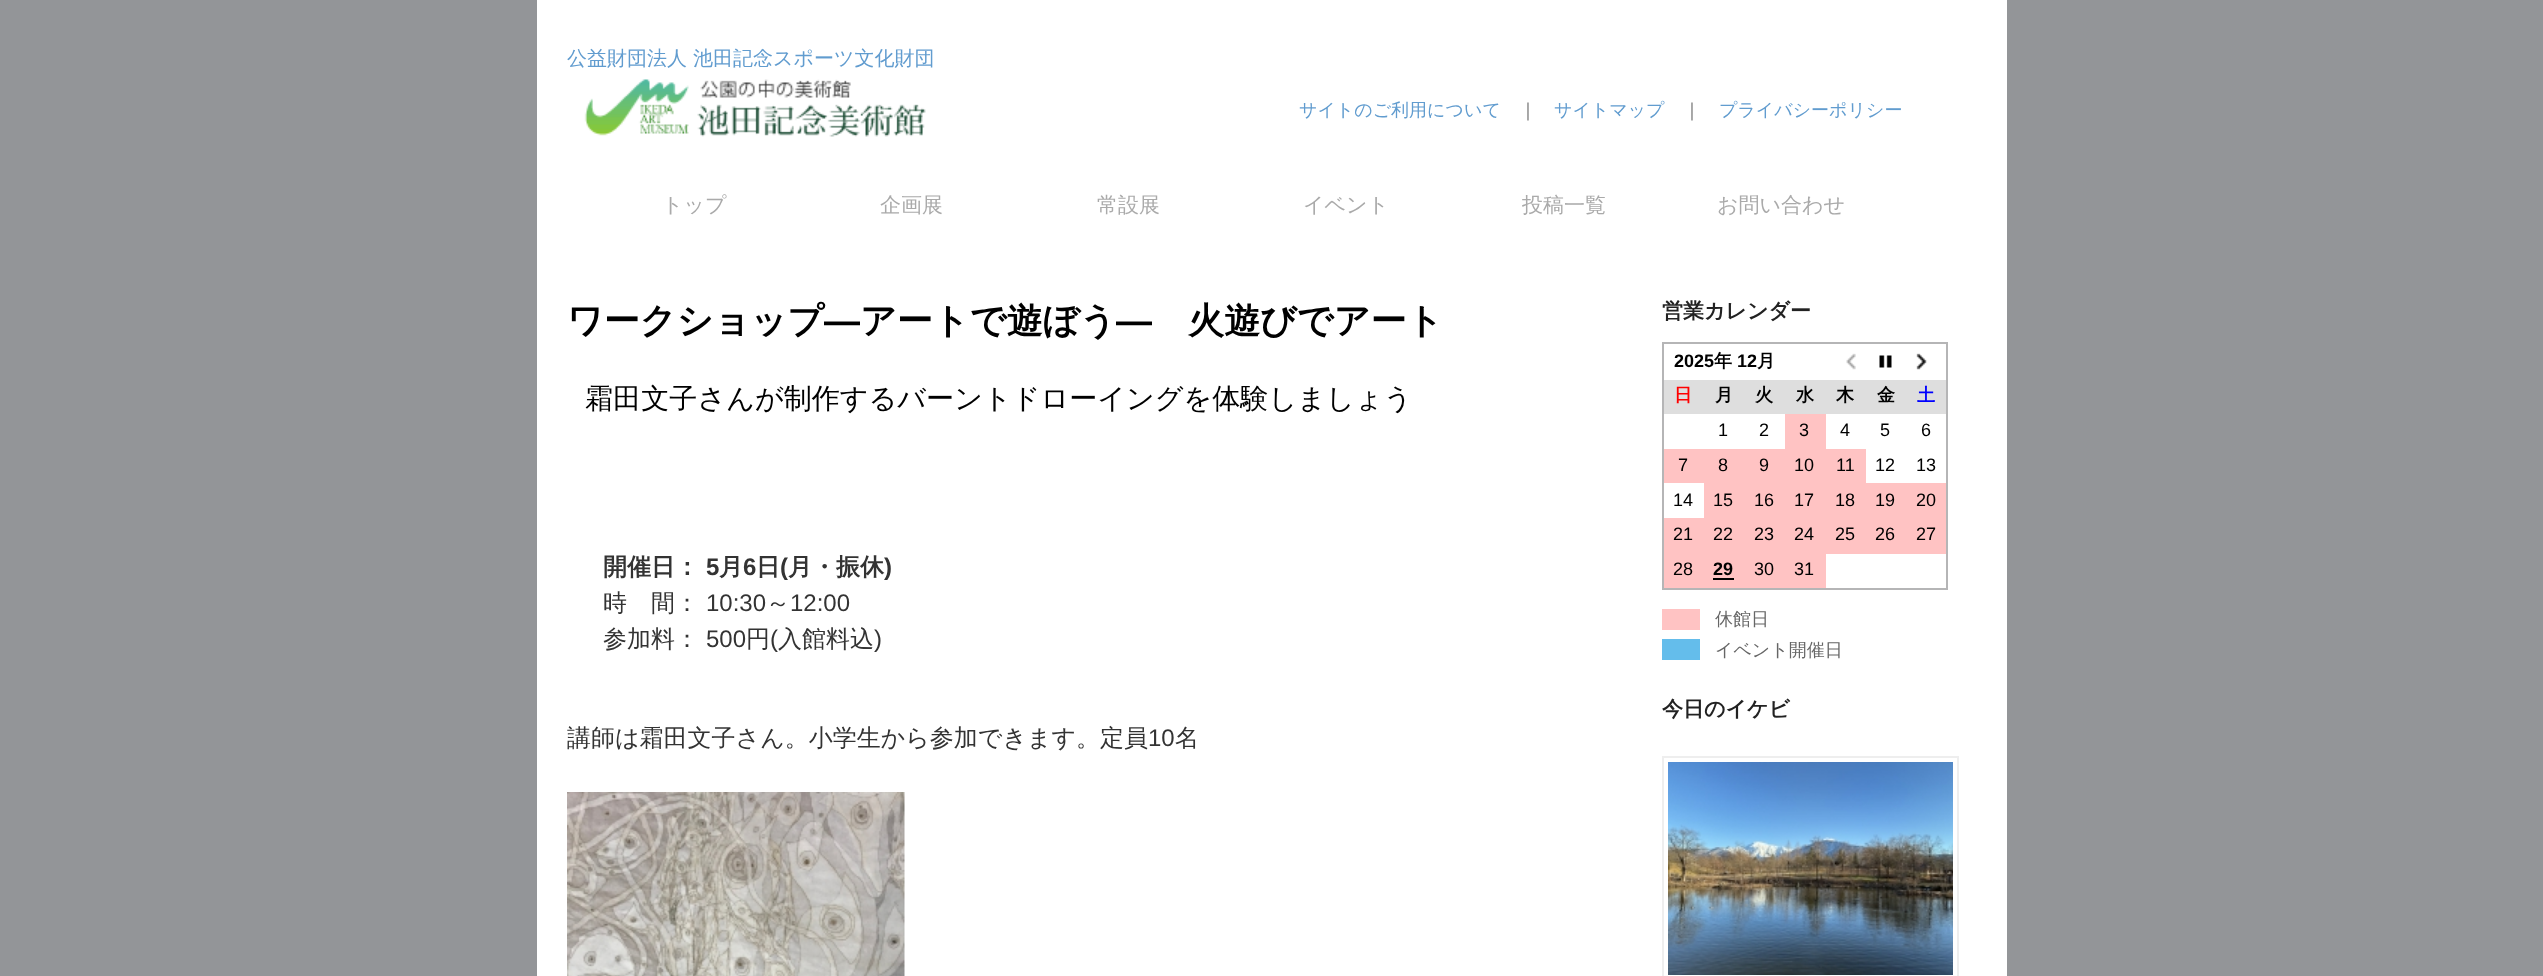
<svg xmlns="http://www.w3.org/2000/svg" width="2543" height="976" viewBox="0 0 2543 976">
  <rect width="100%" height="100%" fill="rgb(147,149,152)"/>
  <rect x="537" y="0" width="1470" height="976" fill="rgb(255,255,255)"/>
  <text x="567" y="65" font-family="WenQuanYi Zen Hei" font-size="20" font-weight="500" fill="rgb(97,156,207)">公益財団法人 池田記念スポーツ文化財団</text>
  <image x="584" y="79" width="342" height="58" href="pic1.png"/>
  <text x="1299" y="116" font-family="WenQuanYi Zen Hei" font-size="18" font-weight="500" fill="rgb(97,156,207)">サイトのご利用について</text>
  <text x="1519" y="116" font-family="WenQuanYi Zen Hei" font-size="18" font-weight="500" fill="rgb(102,102,102)">｜</text>
  <text x="1554" y="116" font-family="WenQuanYi Zen Hei" font-size="18" font-weight="500" fill="rgb(97,156,207)">サイトマップ</text>
  <text x="1683" y="116" font-family="WenQuanYi Zen Hei" font-size="18" font-weight="500" fill="rgb(102,102,102)">｜</text>
  <text x="1719" y="116" font-family="WenQuanYi Zen Hei" font-size="18" font-weight="500" fill="rgb(97,156,207)">プライバシーポリシー</text>
  <g font-family="WenQuanYi Zen Hei" font-size="21" font-weight="500" fill="rgb(170,170,170)">
    <text x="662" y="212">トップ</text>
    <text x="880" y="212">企画展</text>
    <text x="1097" y="212">常設展</text>
    <text x="1303" y="212">イベント</text>
    <text x="1522" y="212">投稿一覧</text>
    <text x="1717" y="212">お問い合わせ</text>
  </g>
  <text x="567" y="333" font-family="WenQuanYi Zen Hei" font-size="36" font-weight="bold" fill="rgb(0,0,0)">ワークショップ</text>
  <text x="824" y="333" font-family="Liberation Sans" font-size="36" font-weight="bold" fill="rgb(0,0,0)">―</text>
  <text x="860" y="333" font-family="WenQuanYi Zen Hei" font-size="36" font-weight="bold" fill="rgb(0,0,0)">アートで遊ぼう</text>
  <text x="1116" y="333" font-family="Liberation Sans" font-size="36" font-weight="bold" fill="rgb(0,0,0)">―</text>
  <text x="1188" y="333" font-family="WenQuanYi Zen Hei" font-size="36" font-weight="bold" fill="rgb(0,0,0)">火遊びでアート</text>
  <text x="585" y="408" font-family="WenQuanYi Zen Hei" font-size="28.1" font-weight="500" fill="rgb(0,0,0)">霜田文子さんが制作するバーントドローイングを体験しましょう</text>
  <text x="603" y="575" font-family="WenQuanYi Zen Hei" font-size="24" font-weight="bold" fill="rgb(51,51,51)">開催日：</text>
  <text x="706" y="575" font-family="Liberation Sans" font-size="24" font-weight="bold" fill="rgb(51,51,51)">5</text>
  <text x="719" y="575" font-family="WenQuanYi Zen Hei" font-size="24" font-weight="bold" fill="rgb(51,51,51)">月</text>
  <text x="743" y="575" font-family="Liberation Sans" font-size="24" font-weight="bold" fill="rgb(51,51,51)">6</text>
  <text x="756" y="575" font-family="WenQuanYi Zen Hei" font-size="24" font-weight="bold" fill="rgb(51,51,51)">日</text>
  <text x="780" y="575" font-family="Liberation Sans" font-size="24" font-weight="bold" fill="rgb(51,51,51)">(</text>
  <text x="788" y="575" font-family="WenQuanYi Zen Hei" font-size="24" font-weight="bold" fill="rgb(51,51,51)">月・振休</text>
  <text x="884" y="575" font-family="Liberation Sans" font-size="24" font-weight="bold" fill="rgb(51,51,51)">)</text>
  <text x="603" y="611" font-family="WenQuanYi Zen Hei" font-size="24" font-weight="500" fill="rgb(51,51,51)">時　間：</text>
  <text x="706" y="611" font-family="Liberation Sans" font-size="24" fill="rgb(51,51,51)">10:30</text>
  <text x="766" y="611" font-family="WenQuanYi Zen Hei" font-size="24" font-weight="500" fill="rgb(51,51,51)">～</text>
  <text x="790" y="611" font-family="Liberation Sans" font-size="24" fill="rgb(51,51,51)">12:00</text>
  <text x="603" y="647" font-family="WenQuanYi Zen Hei" font-size="24" font-weight="500" fill="rgb(51,51,51)">参加料：</text>
  <text x="706" y="647" font-family="Liberation Sans" font-size="24" fill="rgb(51,51,51)">500</text>
  <text x="746" y="647" font-family="WenQuanYi Zen Hei" font-size="24" font-weight="500" fill="rgb(51,51,51)">円</text>
  <text x="770" y="647" font-family="Liberation Sans" font-size="24" fill="rgb(51,51,51)">(</text>
  <text x="778" y="647" font-family="WenQuanYi Zen Hei" font-size="24" font-weight="500" fill="rgb(51,51,51)">入館料込</text>
  <text x="874" y="647" font-family="Liberation Sans" font-size="24" fill="rgb(51,51,51)">)</text>
  <text x="567" y="746" font-family="WenQuanYi Zen Hei" font-size="24" font-weight="500" fill="rgb(51,51,51)">講師は霜田文子さん。小学生から参加できます。定員</text>
  <text x="1148" y="746" font-family="Liberation Sans" font-size="24" fill="rgb(51,51,51)">10</text>
  <text x="1175" y="746" font-family="WenQuanYi Zen Hei" font-size="24" font-weight="500" fill="rgb(51,51,51)">名</text>
  <image x="567" y="792" width="338" height="184" href="pic2.png"/>
  <text x="1662" y="318" font-family="WenQuanYi Zen Hei" font-size="21" font-weight="bold" fill="rgb(34,34,34)">営業カレンダー</text>
  <rect x="1662" y="342" width="285" height="2" fill="rgb(181,181,182)"/>
  <rect x="1946" y="342" width="2" height="248" fill="rgb(181,181,182)"/>
  <rect x="1662" y="588" width="285" height="2" fill="rgb(181,181,182)"/>
  <rect x="1662" y="342" width="2" height="248" fill="rgb(181,181,182)"/>
  <text x="1674" y="367" font-family="Liberation Sans" font-size="18" font-weight="bold" fill="rgb(0,0,0)">2025</text>
  <text x="1714" y="367" font-family="WenQuanYi Zen Hei" font-size="18" font-weight="bold" fill="rgb(0,0,0)">年</text>
  <text x="1737" y="367" font-family="Liberation Sans" font-size="18" font-weight="bold" fill="rgb(0,0,0)">12</text>
  <text x="1757" y="367" font-family="WenQuanYi Zen Hei" font-size="18" font-weight="bold" fill="rgb(0,0,0)">月</text>
  <image x="1846" y="353" width="10" height="17" href="pic3.png"/>
  <image x="1879" y="355" width="13" height="13" href="pic4.png"/>
  <image x="1916" y="353" width="11" height="17" href="pic5.png"/>
  <rect x="1664" y="380" width="282" height="34" fill="rgb(222,222,222)"/>
  <text x="1674" y="401" font-family="WenQuanYi Zen Hei" font-size="18" font-weight="bold" fill="rgb(255,0,0)">日</text>
  <g font-family="WenQuanYi Zen Hei" font-size="18" font-weight="bold" fill="rgb(0,0,0)">
    <text x="1715" y="401">月</text>
    <text x="1755" y="401">火</text>
    <text x="1796" y="401">水</text>
    <text x="1836" y="401">木</text>
    <text x="1877" y="401">金</text>
  </g>
  <text x="1917" y="401" font-family="WenQuanYi Zen Hei" font-size="18" font-weight="bold" fill="rgb(0,0,255)">土</text>
  <g font-family="Liberation Sans" font-size="18" fill="rgb(0,0,0)">
    <text x="1718" y="436">1</text>
    <text x="1759" y="436">2</text>
  </g>
  <rect x="1785" y="414" width="41" height="35" fill="rgb(255,195,195)"/>
  <g font-family="Liberation Sans" font-size="18" fill="rgb(0,0,0)">
    <text x="1799" y="436">3</text>
    <text x="1840" y="436">4</text>
    <text x="1880" y="436">5</text>
    <text x="1921" y="436">6</text>
  </g>
  <rect x="1664" y="449" width="202" height="34" fill="rgb(255,195,195)"/>
  <g font-family="Liberation Sans" font-size="18" fill="rgb(0,0,0)">
    <text x="1678" y="471">7</text>
    <text x="1718" y="471">8</text>
    <text x="1759" y="471">9</text>
    <text x="1794" y="471">10</text>
    <text x="1836" y="471">11</text>
    <text x="1875" y="471">12</text>
    <text x="1916" y="471">13</text>
    <text x="1673" y="506">14</text>
  </g>
  <rect x="1704" y="483" width="242" height="35" fill="rgb(255,195,195)"/>
  <g font-family="Liberation Sans" font-size="18" fill="rgb(0,0,0)">
    <text x="1713" y="506">15</text>
    <text x="1754" y="506">16</text>
    <text x="1794" y="506">17</text>
    <text x="1835" y="506">18</text>
    <text x="1875" y="506">19</text>
    <text x="1916" y="506">20</text>
  </g>
  <rect x="1664" y="518" width="282" height="36" fill="rgb(255,195,195)"/>
  <g font-family="Liberation Sans" font-size="18" fill="rgb(0,0,0)">
    <text x="1673" y="540">21</text>
    <text x="1713" y="540">22</text>
    <text x="1754" y="540">23</text>
    <text x="1794" y="540">24</text>
    <text x="1835" y="540">25</text>
    <text x="1875" y="540">26</text>
    <text x="1916" y="540">27</text>
  </g>
  <rect x="1664" y="554" width="162" height="34" fill="rgb(255,195,195)"/>
  <text x="1673" y="575" font-family="Liberation Sans" font-size="18" fill="rgb(0,0,0)">28</text>
  <text x="1713" y="575" font-family="Liberation Sans" font-size="18" font-weight="bold" fill="rgb(0,0,0)">29</text>
  <rect x="1713" y="578" width="21" height="2" fill="rgb(0,0,0)"/>
  <g font-family="Liberation Sans" font-size="18" fill="rgb(0,0,0)">
    <text x="1754" y="575">30</text>
    <text x="1794" y="575">31</text>
  </g>
  <rect x="1662" y="609" width="38" height="21" fill="rgb(255,195,195)"/>
  <text x="1715" y="625" font-family="WenQuanYi Zen Hei" font-size="18" font-weight="500" fill="rgb(102,102,102)">休館日</text>
  <rect x="1662" y="639" width="38" height="21" fill="rgb(100,189,235)"/>
  <text x="1715" y="656" font-family="WenQuanYi Zen Hei" font-size="18" font-weight="500" fill="rgb(102,102,102)">イベント開催日</text>
  <text x="1662" y="716" font-family="WenQuanYi Zen Hei" font-size="21" font-weight="bold" fill="rgb(34,34,34)">今日のイケビ</text>
  <rect x="1663" y="757" width="295" height="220" fill="none" stroke="rgb(238,238,238)" stroke-width="2"/>
  <image x="1668" y="762" width="285" height="213" href="pic6.png"/>
</svg>
